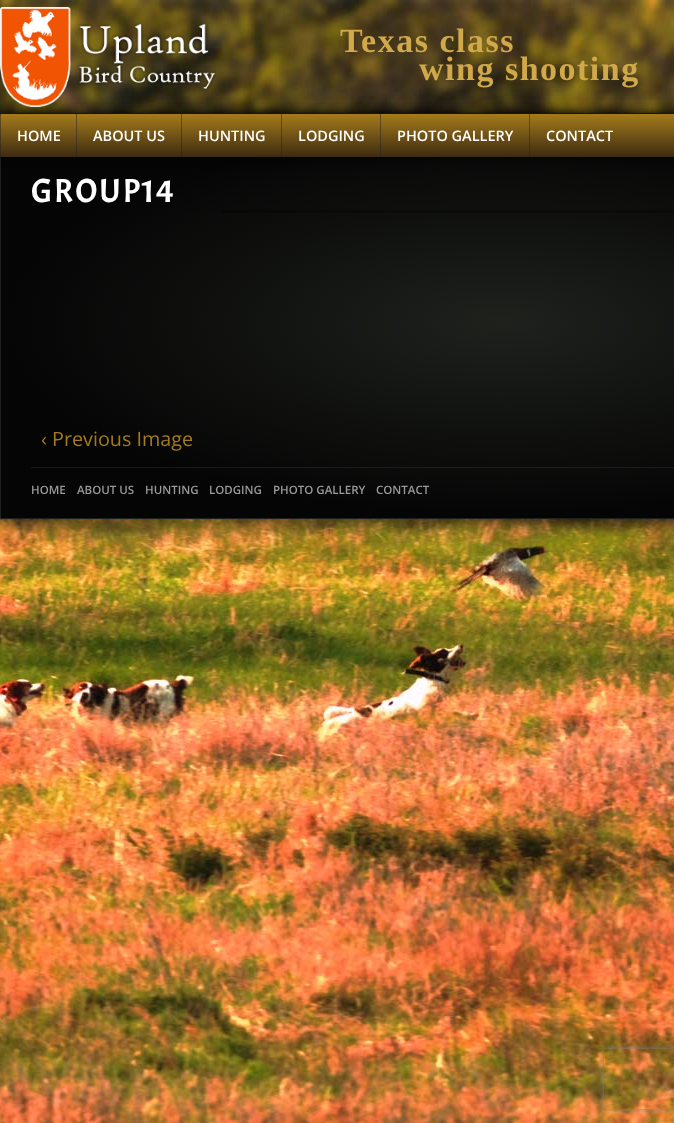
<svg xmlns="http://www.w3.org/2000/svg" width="674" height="1123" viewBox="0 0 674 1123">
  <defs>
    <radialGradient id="g1" gradientUnits="userSpaceOnUse" cx="0" cy="0" r="1" gradientTransform="matrix(707 0 0 276 501 323)"><stop offset="0" stop-color="rgb(30,33,28)"/><stop offset="0.7" stop-color="rgb(5,5,5)"/></radialGradient>
    <linearGradient id="g2" gradientUnits="userSpaceOnUse" x1="502" y1="114" x2="502" y2="157"><stop offset="0" stop-color="rgb(164,123,27)"/><stop offset="1" stop-color="rgb(61,43,17)"/></linearGradient>
    <clipPath id="clip1"><path d="M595 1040H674V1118H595ZM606 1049H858C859 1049 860 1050 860 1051V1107C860 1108 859 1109 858 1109H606C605 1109 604 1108 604 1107V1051C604 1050 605 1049 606 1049Z" clip-rule="evenodd"/></clipPath>
  </defs>
  <rect width="100%" height="100%" fill="rgb(255,255,255)"/>
  <image x="0" y="0" width="674" height="1123" href="pic1.png"/>
  <rect x="0" y="113" width="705" height="406" rx="1" fill="rgba(0,0,0,0.8)" filter="blur(10px)"/>
  <image x="0" y="7" width="216" height="100" href="pic2.png"/>
  <g font-family="Liberation Serif" font-size="34" font-weight="bold" letter-spacing="1.5" fill="rgb(209,169,74)">
    <text x="340" y="52">Texas class</text>
    <text x="419" y="80">wing shooting</text>
  </g>
  <rect x="0" y="113" width="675" height="406" rx="1" fill="rgb(30,33,28)"/>
  <rect x="1" y="157" width="673" height="361" fill="url(#g1)"/>
  <rect x="0" y="114" width="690" height="43" rx="1" fill="rgba(0,0,0,0.85)" filter="blur(5px)"/>
  <rect x="0" y="114" width="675" height="43" rx="1" fill="url(#g2)"/>
  <rect x="0" y="114" width="1" height="43" fill="rgba(35,35,35,0.5)"/>
  <text x="17" y="141" font-family="Open Sans" font-size="14.5" font-weight="600" fill="rgb(255,255,255)">HOME</text>
  <rect x="76" y="114" width="1" height="43" fill="rgba(35,35,35,0.5)"/>
  <text x="93" y="141" font-family="Open Sans" font-size="14.5" font-weight="600" fill="rgb(255,255,255)">ABOUT US</text>
  <rect x="181" y="114" width="1" height="43" fill="rgba(35,35,35,0.5)"/>
  <text x="198" y="141" font-family="Open Sans" font-size="14.5" font-weight="600" fill="rgb(255,255,255)">HUNTING</text>
  <rect x="281" y="114" width="1" height="43" fill="rgba(35,35,35,0.5)"/>
  <text x="298" y="141" font-family="Open Sans" font-size="14.5" font-weight="600" fill="rgb(255,255,255)">LODGING</text>
  <rect x="380" y="114" width="1" height="43" fill="rgba(35,35,35,0.5)"/>
  <text x="397" y="141" font-family="Open Sans" font-size="14.5" font-weight="600" fill="rgb(255,255,255)">PHOTO GALLERY</text>
  <rect x="529" y="114" width="1" height="43" fill="rgba(35,35,35,0.5)"/>
  <text x="546" y="141" font-family="Open Sans" font-size="14.5" font-weight="600" fill="rgb(255,255,255)">CONTACT</text>
  <rect x="221" y="210" width="453" height="3" fill="rgba(0,0,0,0.25)"/>
  <text x="31" y="202" font-family="Acme" font-size="33.5" letter-spacing="1.75" fill="rgb(255,255,255)">GROUP14</text>
  <text x="41" y="446" font-family="Open Sans" font-size="19.75" fill="rgb(164,123,27)">‹ Previous Image</text>
  <rect x="31" y="467" width="643" height="1" fill="rgba(61,43,17,0.5)"/>
  <g font-family="Open Sans" font-size="11.5" font-weight="600" fill="rgb(153,153,153)">
    <text x="31" y="494">HOME</text>
    <text x="77" y="494">ABOUT US</text>
    <text x="145" y="494">HUNTING</text>
    <text x="209" y="494">LODGING</text>
    <text x="273" y="494">PHOTO GALLERY</text>
    <text x="376" y="494">CONTACT</text>
  </g>
  <g clip-path="url(#clip1)">
    <rect x="604" y="1049" width="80" height="60" rx="2" fill="rgb(128,128,128)" filter="blur(2.5px)"/>
  </g>
</svg>
